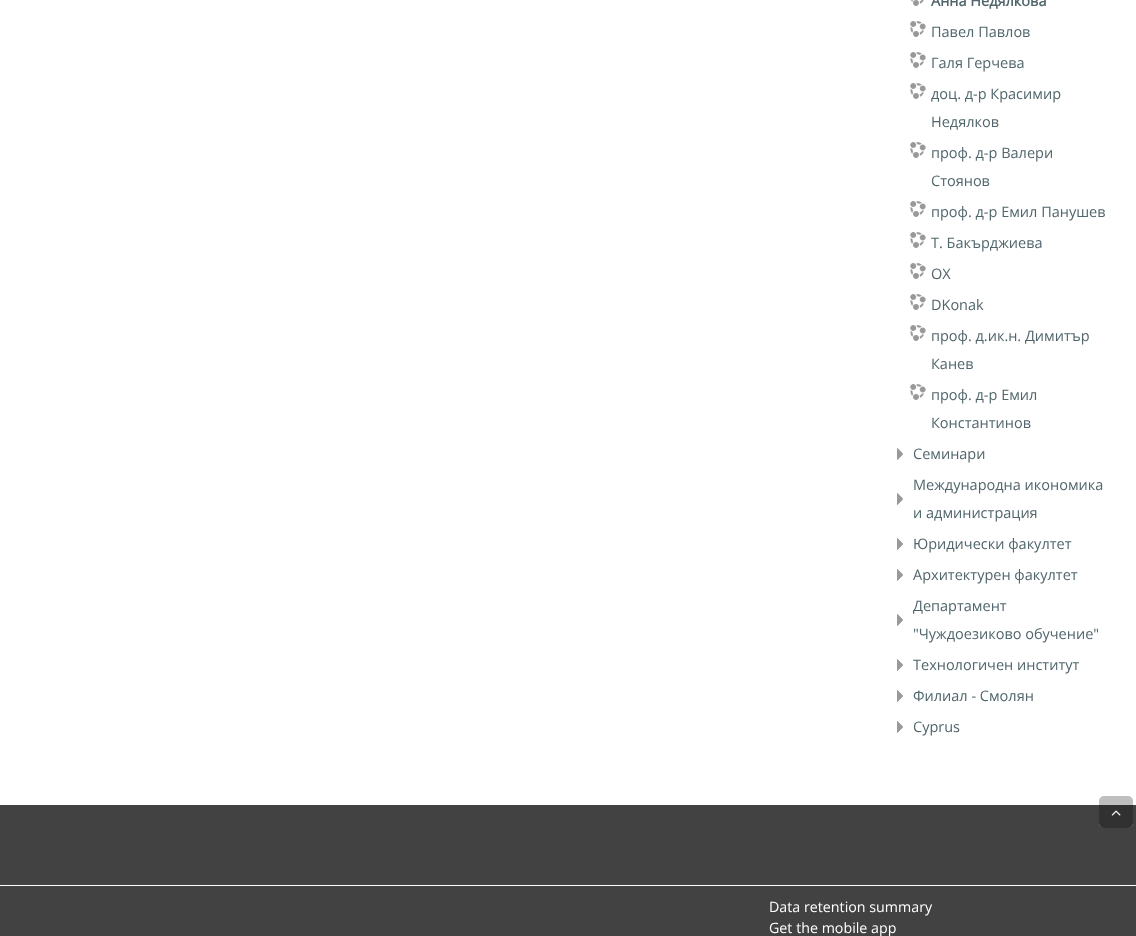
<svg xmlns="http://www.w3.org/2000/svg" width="1136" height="936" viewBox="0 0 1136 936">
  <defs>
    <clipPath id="clip1"><path d="M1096 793H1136V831H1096ZM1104 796H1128C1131 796 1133 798 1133 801V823C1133 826 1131 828 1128 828H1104C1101 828 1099 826 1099 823V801C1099 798 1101 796 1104 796Z" clip-rule="evenodd"/></clipPath>
  </defs>
  <rect width="100%" height="100%" fill="rgb(255,255,255)"/>
  <image x="911" y="0" width="13" height="6" href="pic1.png"/>
  <text x="931" y="6" font-family="Open Sans" font-size="14.5" font-weight="bold" fill="rgb(81,102,108)">Анна Недялкова</text>
  <image x="910" y="21" width="16" height="16" href="pic2.png"/>
  <text x="931" y="37" font-family="Open Sans" font-size="14.5" fill="rgb(81,102,108)">Павел Павлов</text>
  <image x="910" y="52" width="16" height="16" href="pic2.png"/>
  <text x="931" y="68" font-family="Open Sans" font-size="14.5" fill="rgb(81,102,108)">Галя Герчева</text>
  <image x="910" y="83" width="16" height="16" href="pic2.png"/>
  <g font-family="Open Sans" font-size="14.5" fill="rgb(81,102,108)">
    <text>
      <tspan x="931" y="99">доц. д-р Красимир</tspan>
      <tspan x="931" y="127">Недялков</tspan>
    </text>
  </g>
  <image x="910" y="142" width="16" height="16" href="pic2.png"/>
  <g font-family="Open Sans" font-size="14.5" fill="rgb(81,102,108)">
    <text>
      <tspan x="931" y="158">проф. д-р Валери</tspan>
      <tspan x="931" y="186">Стоянов</tspan>
    </text>
  </g>
  <image x="910" y="201" width="16" height="16" href="pic2.png"/>
  <text x="931" y="217" font-family="Open Sans" font-size="14.5" fill="rgb(81,102,108)">проф. д-р Емил Панушев</text>
  <image x="910" y="232" width="16" height="16" href="pic2.png"/>
  <text x="931" y="248" font-family="Open Sans" font-size="14.5" fill="rgb(81,102,108)">Т. Бакърджиева</text>
  <image x="910" y="263" width="16" height="16" href="pic2.png"/>
  <text x="931" y="279" font-family="Open Sans" font-size="14.5" fill="rgb(81,102,108)">OX</text>
  <image x="910" y="294" width="16" height="16" href="pic3.png"/>
  <text x="931" y="310" font-family="Open Sans" font-size="14.5" fill="rgb(81,102,108)">DKonak</text>
  <image x="910" y="325" width="16" height="16" href="pic2.png"/>
  <g font-family="Open Sans" font-size="14.5" fill="rgb(81,102,108)">
    <text>
      <tspan x="931" y="341">проф. д.ик.н. Димитър</tspan>
      <tspan x="931" y="369">Канев</tspan>
    </text>
  </g>
  <image x="910" y="384" width="16" height="16" href="pic2.png"/>
  <g font-family="Open Sans" font-size="14.5" fill="rgb(81,102,108)">
    <text>
      <tspan x="931" y="400">проф. д-р Емил</tspan>
      <tspan x="931" y="428">Константинов</tspan>
    </text>
  </g>
  <image x="897" y="448" width="6" height="12" href="pic4.png"/>
  <text x="913" y="459" font-family="Open Sans" font-size="14.5" fill="rgb(81,102,108)">Семинари</text>
  <image x="897" y="493" width="6" height="12" href="pic4.png"/>
  <g font-family="Open Sans" font-size="14.5" fill="rgb(81,102,108)">
    <text>
      <tspan x="913" y="490">Международна икономика</tspan>
      <tspan x="913" y="518">и администрация</tspan>
    </text>
  </g>
  <image x="897" y="538" width="6" height="12" href="pic5.png"/>
  <text x="913" y="549" font-family="Open Sans" font-size="14.5" fill="rgb(81,102,108)">Юридически факултет</text>
  <image x="897" y="569" width="6" height="12" href="pic4.png"/>
  <text x="913" y="580" font-family="Open Sans" font-size="14.5" fill="rgb(81,102,108)">Архитектурен факултет</text>
  <image x="897" y="614" width="6" height="12" href="pic4.png"/>
  <g font-family="Open Sans" font-size="14.5" fill="rgb(81,102,108)">
    <text>
      <tspan x="913" y="611">Департамент</tspan>
      <tspan x="913" y="639">"Чуждоезиково обучение"</tspan>
    </text>
  </g>
  <image x="897" y="659" width="6" height="12" href="pic4.png"/>
  <text x="913" y="670" font-family="Open Sans" font-size="14.5" fill="rgb(81,102,108)">Технологичен институт</text>
  <image x="897" y="690" width="6" height="12" href="pic4.png"/>
  <text x="913" y="701" font-family="Open Sans" font-size="14.5" fill="rgb(81,102,108)">Филиал - Смолян</text>
  <image x="897" y="721" width="6" height="12" href="pic4.png"/>
  <text x="913" y="732" font-family="Open Sans" font-size="14.5" fill="rgb(81,102,108)">Cyprus</text>
  <rect x="0" y="805" width="1136" height="131" fill="rgb(66,66,66)"/>
  <g clip-path="url(#clip1)">
    <rect x="1099" y="796" width="34" height="32" rx="5" fill="rgb(255,255,255)" filter="blur(0.5px)"/>
  </g>
  <rect x="1099" y="796" width="34" height="32" rx="5" fill="rgba(0,0,0,0.25)"/>
  <image x="1111" y="810" width="10" height="6" href="pic6.png"/>
  <rect x="0" y="885" width="1136" height="1" fill="rgb(255,255,255)"/>
  <g font-family="Open Sans" font-size="14.25" fill="rgb(255,255,255)">
    <text>
      <tspan x="769" y="912">Data retention summary</tspan>
      <tspan x="769" y="933">Get the mobile app</tspan>
    </text>
  </g>
</svg>
